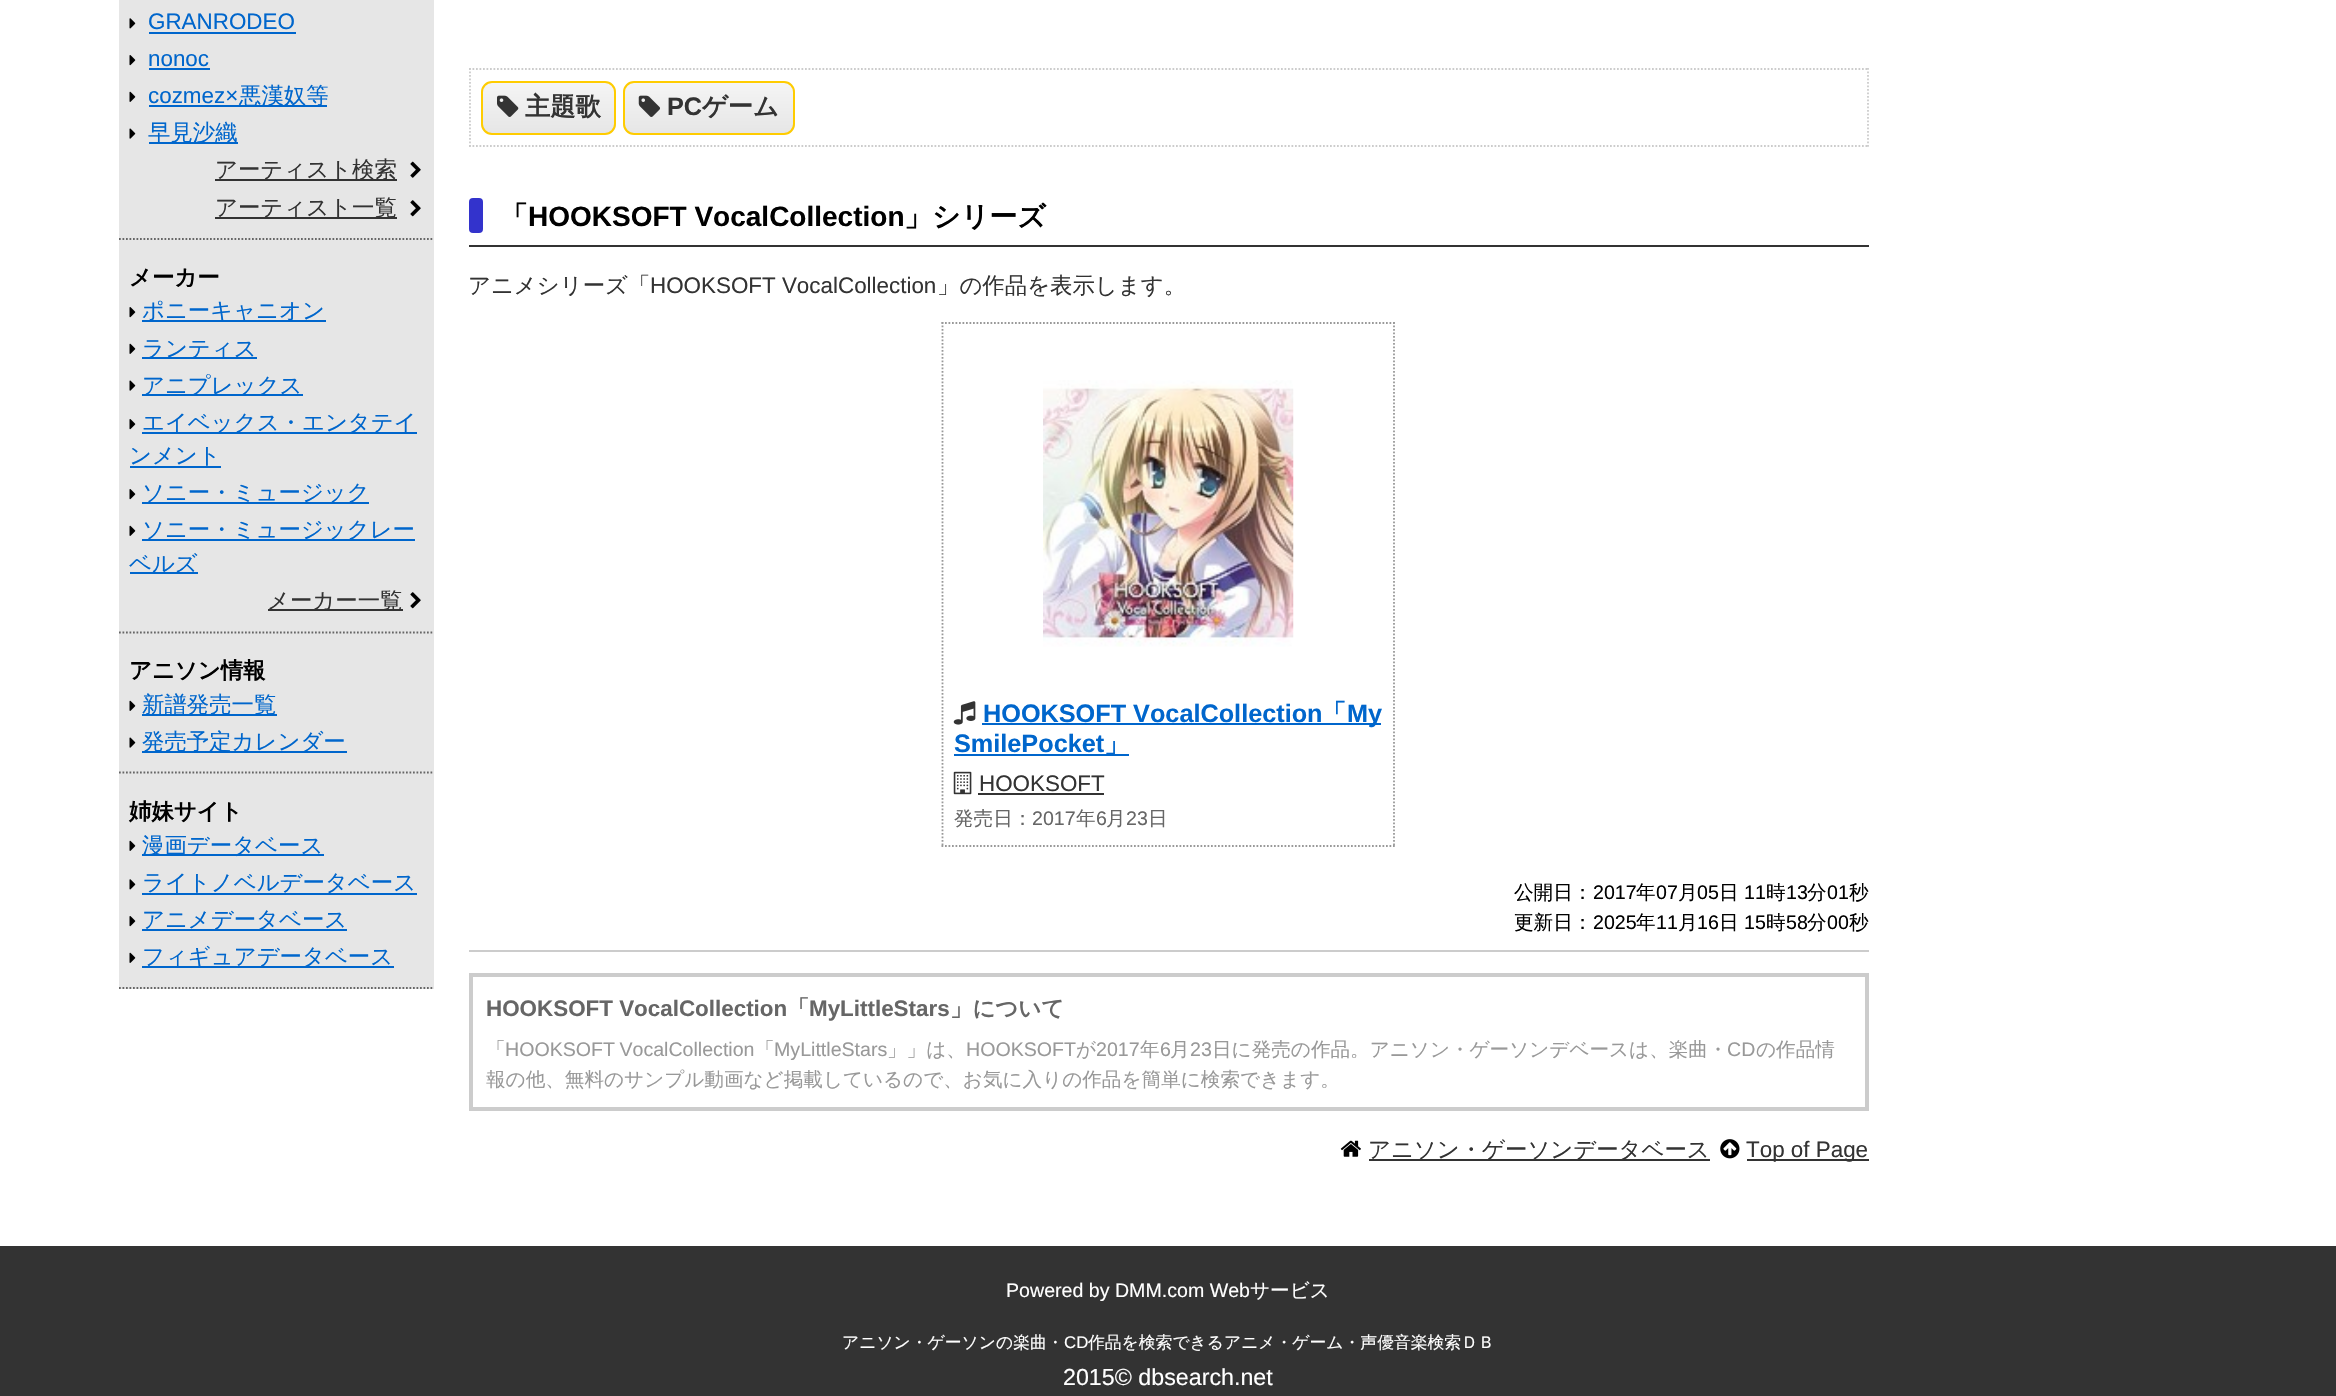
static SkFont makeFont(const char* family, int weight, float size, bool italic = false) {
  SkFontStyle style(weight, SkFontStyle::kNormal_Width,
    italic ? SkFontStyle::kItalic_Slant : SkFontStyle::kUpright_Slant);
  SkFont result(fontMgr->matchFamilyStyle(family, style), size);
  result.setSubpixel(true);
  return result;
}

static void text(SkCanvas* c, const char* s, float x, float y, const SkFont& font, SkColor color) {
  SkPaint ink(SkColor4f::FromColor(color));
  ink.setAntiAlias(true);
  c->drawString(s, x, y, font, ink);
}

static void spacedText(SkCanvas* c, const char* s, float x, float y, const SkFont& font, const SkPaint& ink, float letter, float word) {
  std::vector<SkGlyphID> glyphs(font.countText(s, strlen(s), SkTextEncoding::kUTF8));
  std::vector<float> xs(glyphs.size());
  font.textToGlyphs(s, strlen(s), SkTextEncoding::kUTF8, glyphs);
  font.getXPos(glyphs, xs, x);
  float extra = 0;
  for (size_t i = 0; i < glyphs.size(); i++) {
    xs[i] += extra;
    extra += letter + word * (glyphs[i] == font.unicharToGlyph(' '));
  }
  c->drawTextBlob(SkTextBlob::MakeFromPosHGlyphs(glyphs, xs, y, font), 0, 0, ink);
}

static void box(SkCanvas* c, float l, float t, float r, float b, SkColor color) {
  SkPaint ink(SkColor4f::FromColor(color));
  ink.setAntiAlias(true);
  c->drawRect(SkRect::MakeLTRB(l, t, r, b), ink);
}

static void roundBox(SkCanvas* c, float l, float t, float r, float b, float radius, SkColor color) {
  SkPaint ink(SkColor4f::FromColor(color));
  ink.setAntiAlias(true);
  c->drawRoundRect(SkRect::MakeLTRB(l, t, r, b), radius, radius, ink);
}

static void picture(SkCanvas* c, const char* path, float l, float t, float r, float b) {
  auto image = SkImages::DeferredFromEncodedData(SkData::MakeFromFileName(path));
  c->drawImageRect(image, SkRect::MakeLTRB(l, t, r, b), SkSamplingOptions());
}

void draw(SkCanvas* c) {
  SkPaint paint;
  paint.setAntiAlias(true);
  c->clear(0xffffffff);
  box(c, 119, 0, 434, 989, 0xffe6e6e6);
  paint.setStyle(SkPaint::kStroke_Style);
  paint.setStrokeWidth(1.8f);
  paint.setColor(0xff666666);
  paint.setPathEffect(SkDashPathEffect::Make({{1.75f, 1.75f}}, 0));
  c->drawPath(SkPathBuilder().moveTo(119, 239).lineTo(434, 239).detach(), paint);
  paint.setPathEffect(nullptr);
  picture(c, "img_01.png", 129, 18, 136, 29);
  SkFont face1 = makeFont("Liberation Sans", 400, 22.4f);
  text(c, "GRANRODEO", 148, 29, face1, 0xff0066cc);
  box(c, 149, 32, 296, 34, 0xff0066cc);
  picture(c, "img_02.png", 129, 55, 136, 66);
  text(c, "nonoc", 148, 66, face1, 0xff0066cc);
  box(c, 149, 68, 210, 70, 0xff0066cc);
  picture(c, "img_03.png", 129, 91, 136, 102);
  text(c, "cozmez×", 148, 103, face1, 0xff0066cc);
  box(c, 149, 105, 327, 107, 0xff0066cc);
  SkFont face2 = makeFont("WenQuanYi Zen Hei", 500, 22.4f);
  text(c, "悪漢奴等", 239, 103, face2, 0xff0066cc);
  picture(c, "img_04.png", 129, 128, 136, 139);
  box(c, 149, 142, 238, 144, 0xff0066cc);
  text(c, "早見沙織", 148, 140, face2, 0xff0066cc);
  box(c, 215, 179, 397, 181, 0xff333333);
  text(c, "アーティスト検索", 215, 177, face2, 0xff333333);
  picture(c, "img_05.png", 410, 161, 421, 178);
  box(c, 215, 217, 397, 219, 0xff333333);
  text(c, "アーティスト一覧", 215, 215, face2, 0xff333333);
  picture(c, "img_06.png", 410, 200, 421, 217);
  SkFont face3 = makeFont("WenQuanYi Zen Hei", 700, 22.4f);
  text(c, "メーカー", 129, 285, face3, 0xff000000);
  paint.setPathEffect(SkDashPathEffect::Make({{1.75f, 1.75f}}, 0));
  c->drawPath(SkPathBuilder().moveTo(119, 632.5f).lineTo(434, 632.5f).detach(), paint);
  paint.setPathEffect(nullptr);
  picture(c, "img_02.png", 129, 307, 136, 318);
  box(c, 142, 320, 326, 322, 0xff0066cc);
  text(c, "ポニーキャニオン", 142, 318, face2, 0xff0066cc);
  picture(c, "img_03.png", 129, 343, 136, 354);
  box(c, 142, 357, 257, 359, 0xff0066cc);
  text(c, "ランティス", 142, 356, face2, 0xff0066cc);
  picture(c, "img_04.png", 129, 380, 136, 391);
  box(c, 142, 394, 303, 396, 0xff0066cc);
  text(c, "アニプレックス", 142, 393, face2, 0xff0066cc);
  picture(c, "img_02.png", 129, 419, 136, 430);
  box(c, 142, 432, 417, 434, 0xff0066cc);
  text(c, "エイベックス・エンタテイ", 142, 430, face2, 0xff0066cc);
  text(c, "ンメント", 129, 463, face2, 0xff0066cc);
  box(c, 130, 466, 221, 468, 0xff0066cc);
  picture(c, "img_02.png", 129, 489, 136, 500);
  box(c, 142, 502, 369, 504, 0xff0066cc);
  text(c, "ソニー・ミュージック", 142, 500, face2, 0xff0066cc);
  picture(c, "img_03.png", 129, 525, 136, 536);
  box(c, 142, 539, 415, 541, 0xff0066cc);
  text(c, "ソニー・ミュージックレー", 142, 537, face2, 0xff0066cc);
  box(c, 130, 572, 198, 574, 0xff0066cc);
  text(c, "ベルズ", 129, 571, face2, 0xff0066cc);
  box(c, 268, 609, 403, 611, 0xff333333);
  text(c, "メーカー一覧", 267, 608, face2, 0xff333333);
  picture(c, "img_06.png", 410, 592, 421, 609);
  text(c, "アニソン情報", 129, 678, face3, 0xff000000);
  paint.setPathEffect(SkDashPathEffect::Make({{1.75f, 1.75f}}, 0));
  c->drawPath(SkPathBuilder().moveTo(119, 772.5f).lineTo(434, 772.5f).detach(), paint);
  paint.setPathEffect(nullptr);
  picture(c, "img_03.png", 129, 700, 136, 711);
  box(c, 142, 714, 277, 716, 0xff0066cc);
  text(c, "新譜発売一覧", 142, 712, face2, 0xff0066cc);
  picture(c, "img_04.png", 129, 737, 136, 748);
  box(c, 142, 751, 347, 753, 0xff0066cc);
  text(c, "発売予定カレンダー", 142, 749, face2, 0xff0066cc);
  text(c, "姉妹サイト", 129, 819, face3, 0xff000000);
  paint.setPathEffect(SkDashPathEffect::Make({{1.75f, 1.75f}}, 0));
  c->drawPath(SkPathBuilder().moveTo(119, 988).lineTo(434, 988).detach(), paint);
  paint.setPathEffect(nullptr);
  picture(c, "img_03.png", 129, 840, 136, 851);
  box(c, 142, 854, 324, 856, 0xff0066cc);
  text(c, "漫画データベース", 142, 853, face2, 0xff0066cc);
  picture(c, "img_01.png", 129, 879, 136, 890);
  box(c, 142, 893, 417, 895, 0xff0066cc);
  text(c, "ライトノベルデータベース", 142, 890, face2, 0xff0066cc);
  picture(c, "img_02.png", 129, 916, 136, 927);
  box(c, 142, 929, 347, 931, 0xff0066cc);
  text(c, "アニメデータベース", 142, 927, face2, 0xff0066cc);
  picture(c, "img_03.png", 129, 952, 136, 963);
  box(c, 142, 966, 394, 968, 0xff0066cc);
  text(c, "フィギュアデータベース", 142, 964, face2, 0xff0066cc);
  paint.setColor(0xffcccccc);
  paint.setPathEffect(SkDashPathEffect::Make({{1.75f, 1.75f}}, 0));
  c->drawPath(SkPathBuilder().moveTo(469, 69).lineTo(1869, 69).detach(), paint);
  paint.setPathEffect(nullptr);
  paint.setPathEffect(SkDashPathEffect::Make({{1.75f, 1.75f}}, 0));
  c->drawPath(SkPathBuilder().moveTo(1868, 68).lineTo(1868, 147).detach(), paint);
  paint.setPathEffect(nullptr);
  paint.setPathEffect(SkDashPathEffect::Make({{1.75f, 1.75f}}, 0));
  c->drawPath(SkPathBuilder().moveTo(469, 146).lineTo(1869, 146).detach(), paint);
  paint.setPathEffect(nullptr);
  paint.setPathEffect(SkDashPathEffect::Make({{1.75f, 1.75f}}, 0));
  c->drawPath(SkPathBuilder().moveTo(470, 68).lineTo(470, 147).detach(), paint);
  paint.setPathEffect(nullptr);
  c->save();
  c->clipPath(SkPathBuilder().moveTo(492, 81).lineTo(605, 81).cubicTo(611, 81, 616, 86, 616, 92).lineTo(616, 124).cubicTo(616, 130, 611, 135, 605, 135).lineTo(492, 135).cubicTo(486, 135, 481, 130, 481, 124).lineTo(481, 92).cubicTo(481, 86, 486, 81, 492, 81).close().detach(), true);
  paint.setStyle(SkPaint::kFill_Style);
  {
    const SkColor colors[] = {0xfff5f5f5, 0xffe6e6e6};
    const float stops[] = {0, 1};
    const SkPoint ends[] = {{483, 82}, {483, 133}};
    paint.setShader(SkGradientShader::MakeLinear(ends, colors, stops, 2, SkTileMode::kClamp));
    paint.setAlpha(255);
  }
  c->drawRect(SkRect::MakeLTRB(481, 82, 616, 133), paint);
  c->restore();
  paint.setStyle(SkPaint::kStroke_Style);
  paint.setStrokeWidth(2);
  paint.setShader(nullptr);
  paint.setColor(0xffffcc00);
  c->drawRoundRect(SkRect::MakeLTRB(482, 82, 615, 134), 10, 10, paint);
  picture(c, "img_07.png", 497, 95, 519, 117);
  SkFont face4 = makeFont("WenQuanYi Zen Hei", 700, 25.25f);
  text(c, "主題歌", 525, 115, face4, 0xff333333);
  c->save();
  c->clipPath(SkPathBuilder().moveTo(634, 81).lineTo(784, 81).cubicTo(790, 81, 795, 86, 795, 92).lineTo(795, 124).cubicTo(795, 130, 790, 135, 784, 135).lineTo(634, 135).cubicTo(628, 135, 623, 130, 623, 124).lineTo(623, 92).cubicTo(623, 86, 628, 81, 634, 81).close().detach(), true);
  paint.setStyle(SkPaint::kFill_Style);
  {
    const SkColor colors[] = {0xfff5f5f5, 0xffe6e6e6};
    const float stops[] = {0, 1};
    const SkPoint ends[] = {{625, 82}, {625, 133}};
    paint.setShader(SkGradientShader::MakeLinear(ends, colors, stops, 2, SkTileMode::kClamp));
    paint.setAlpha(255);
  }
  c->drawRect(SkRect::MakeLTRB(623, 82, 795, 133), paint);
  c->restore();
  paint.setStyle(SkPaint::kStroke_Style);
  paint.setShader(nullptr);
  paint.setColor(0xffffcc00);
  c->drawRoundRect(SkRect::MakeLTRB(624, 82, 794, 134), 10, 10, paint);
  picture(c, "img_08.png", 638, 95, 660, 117);
  SkFont face5 = makeFont("Liberation Sans", 700, 25.25f);
  text(c, "PC", 667, 115, face5, 0xff333333);
  text(c, "ゲーム", 702, 115, face4, 0xff333333);
  box(c, 469, 245, 1869, 247, 0xff333333);
  roundBox(c, 469, 198, 483, 233, 4, 0xff3333cc);
  SkFont face6 = makeFont("WenQuanYi Zen Hei", 700, 28);
  text(c, "「", 500, 226, face6, 0xff000000);
  SkFont face7 = makeFont("Liberation Sans", 700, 28);
  text(c, "HOOKSOFT VocalCollection", 528, 226, face7, 0xff000000);
  text(c, "」シリーズ", 904, 226, face6, 0xff000000);
  text(c, "アニメシリーズ「", 468, 293, face2, 0xff333333);
  text(c, "HOOKSOFT VocalCollection", 650, 293, face1, 0xff333333);
  text(c, "」の作品を表示します。", 937, 293, face2, 0xff333333);
  paint.setStrokeWidth(1.8f);
  paint.setColor(0xff999999);
  paint.setPathEffect(SkDashPathEffect::Make({{1.75f, 1.75f}}, 0));
  c->drawPath(SkPathBuilder().moveTo(941.5f, 323).lineTo(1395, 323).detach(), paint);
  paint.setPathEffect(nullptr);
  paint.setPathEffect(SkDashPathEffect::Make({{1.75f, 1.75f}}, 0));
  c->drawPath(SkPathBuilder().moveTo(1394, 322).lineTo(1394, 847).detach(), paint);
  paint.setPathEffect(nullptr);
  paint.setPathEffect(SkDashPathEffect::Make({{1.75f, 1.75f}}, 0));
  c->drawPath(SkPathBuilder().moveTo(941.5f, 846).lineTo(1395, 846).detach(), paint);
  paint.setPathEffect(nullptr);
  paint.setPathEffect(SkDashPathEffect::Make({{1.75f, 1.75f}}, 0));
  c->drawPath(SkPathBuilder().moveTo(942.5f, 322).lineTo(942.5f, 847).detach(), paint);
  paint.setPathEffect(nullptr);
  picture(c, "img_09.png", 1043, 380, 1294, 647);
  picture(c, "img_10.png", 953, 701, 976, 725);
  text(c, "HOOKSOFT VocalCollection", 983, 722, face5, 0xff0066cc);
  text(c, "「", 1321, 722, face4, 0xff0066cc);
  box(c, 982, 723, 1381, 725, 0xff0066cc);
  text(c, "My", 1347, 722, face5, 0xff0066cc);
  text(c, "SmilePocket", 954, 752, face5, 0xff0066cc);
  box(c, 954, 754, 1129, 756, 0xff0066cc);
  text(c, "」", 1104, 752, face4, 0xff0066cc);
  picture(c, "img_11.png", 953, 771, 972, 795);
  text(c, "HOOKSOFT", 979, 791, face1, 0xff333333);
  box(c, 978, 793, 1104, 795, 0xff333333);
  SkFont face8 = makeFont("WenQuanYi Zen Hei", 500, 19.6f);
  text(c, "発売日：", 954, 825, face8, 0xff666666);
  SkFont face9 = makeFont("Liberation Sans", 400, 19.6f);
  text(c, "2017", 1032, 825, face9, 0xff666666);
  text(c, "年", 1076, 825, face8, 0xff666666);
  text(c, "6", 1096, 825, face9, 0xff666666);
  text(c, "月", 1106, 825, face8, 0xff666666);
  text(c, "23", 1126, 825, face9, 0xff666666);
  text(c, "日", 1148, 825, face8, 0xff666666);
  box(c, 469, 950, 1869, 952, 0xffcccccc);
  text(c, "公開日：", 1514, 899, face8, 0xff000000);
  text(c, "2017", 1593, 899, face9, 0xff000000);
  text(c, "年", 1636, 899, face8, 0xff000000);
  text(c, "07", 1656, 899, face9, 0xff000000);
  text(c, "月", 1678, 899, face8, 0xff000000);
  text(c, "05", 1697, 899, face9, 0xff000000);
  text(c, "日", 1719, 899, face8, 0xff000000);
  text(c, "11", 1744, 899, face9, 0xff000000);
  text(c, "時", 1766, 899, face8, 0xff000000);
  text(c, "13", 1786, 899, face9, 0xff000000);
  text(c, "分", 1807, 899, face8, 0xff000000);
  text(c, "01", 1827, 899, face9, 0xff000000);
  text(c, "秒", 1849, 899, face8, 0xff000000);
  text(c, "更新日：", 1514, 929, face8, 0xff000000);
  text(c, "2025", 1593, 929, face9, 0xff000000);
  text(c, "年", 1636, 929, face8, 0xff000000);
  text(c, "11", 1656, 929, face9, 0xff000000);
  text(c, "月", 1678, 929, face8, 0xff000000);
  text(c, "16", 1697, 929, face9, 0xff000000);
  text(c, "日", 1719, 929, face8, 0xff000000);
  text(c, "15", 1744, 929, face9, 0xff000000);
  text(c, "時", 1766, 929, face8, 0xff000000);
  text(c, "58", 1786, 929, face9, 0xff000000);
  text(c, "分", 1807, 929, face8, 0xff000000);
  text(c, "00", 1827, 929, face9, 0xff000000);
  text(c, "秒", 1849, 929, face8, 0xff000000);
  paint.setStrokeWidth(4);
  paint.setColor(0xffcccccc);
  c->drawRect(SkRect::MakeLTRB(471, 975, 1867, 1109), paint);
  SkFont face10 = makeFont("Liberation Sans", 700, 22.4f);
  text(c, "HOOKSOFT VocalCollection", 486, 1016, face10, 0xff666666);
  text(c, "「", 787, 1016, face3, 0xff666666);
  text(c, "MyLittleStars", 809, 1016, face10, 0xff666666);
  text(c, "」について", 950, 1016, face3, 0xff666666);
  text(c, "「", 486, 1056, face8, 0xff999999);
  paint.setStyle(SkPaint::kFill_Style);
  paint.setColor(0xff999999);
  spacedText(c, "HOOKSOFT VocalCollection", 505, 1056, face9, paint, 0, -1);
  text(c, "「", 755, 1056, face8, 0xff999999);
  text(c, "MyLittleStars", 774, 1056, face9, 0xff999999);
  text(c, "」」は、", 887, 1056, face8, 0xff999999);
  text(c, "HOOKSOFT", 966, 1056, face9, 0xff999999);
  text(c, "が", 1076, 1056, face8, 0xff999999);
  text(c, "2017", 1096, 1056, face9, 0xff999999);
  text(c, "年", 1140, 1056, face8, 0xff999999);
  text(c, "6", 1160, 1056, face9, 0xff999999);
  text(c, "月", 1170, 1056, face8, 0xff999999);
  text(c, "23", 1190, 1056, face9, 0xff999999);
  text(c, "日に発売の作品。アニソン・ゲーソンデベースは、楽曲・", 1212, 1056, face8, 0xff999999);
  text(c, "CD", 1727, 1056, face9, 0xff999999);
  text(c, "の作品情", 1756, 1056, face8, 0xff999999);
  text(c, "報の他、無料のサンプル動画など掲載しているので、お気に入りの作品を簡単に検索できます。", 486, 1086, face8, 0xff999999);
  picture(c, "img_12.png", 1340, 1140, 1361, 1157);
  box(c, 1369, 1159, 1710, 1161, 0xff333333);
  text(c, "アニソン・ゲーソンデータベース", 1368, 1157, face2, 0xff333333);
  picture(c, "img_13.png", 1720, 1139, 1740, 1159);
  box(c, 1747, 1159, 1869, 1161, 0xff333333);
  text(c, "Top of Page", 1746, 1157, face1, 0xff333333);
  box(c, 0, 1246, 2336, 1396, 0xff333333);
  text(c, "Powered by DMM.com Web", 1006, 1297, face9, 0xffffffff);
  text(c, "サービス", 1250, 1297, face8, 0xffffffff);
  SkFont face11 = makeFont("WenQuanYi Zen Hei", 500, 16.8f);
  text(c, "アニソン・ゲーソンの楽曲・", 842, 1348, face11, 0xffffffff);
  SkFont face12 = makeFont("Liberation Sans", 400, 16.8f);
  text(c, "CD", 1064, 1348, face12, 0xffffffff);
  text(c, "作品を検索できるアニメ・ゲーム・声優音楽検索ＤＢ", 1088, 1348, face11, 0xffffffff);
  SkFont face13 = makeFont("Liberation Sans", 400, 23.25f);
  text(c, "2015© dbsearch.net", 1063, 1385, face13, 0xffffffff);
}
